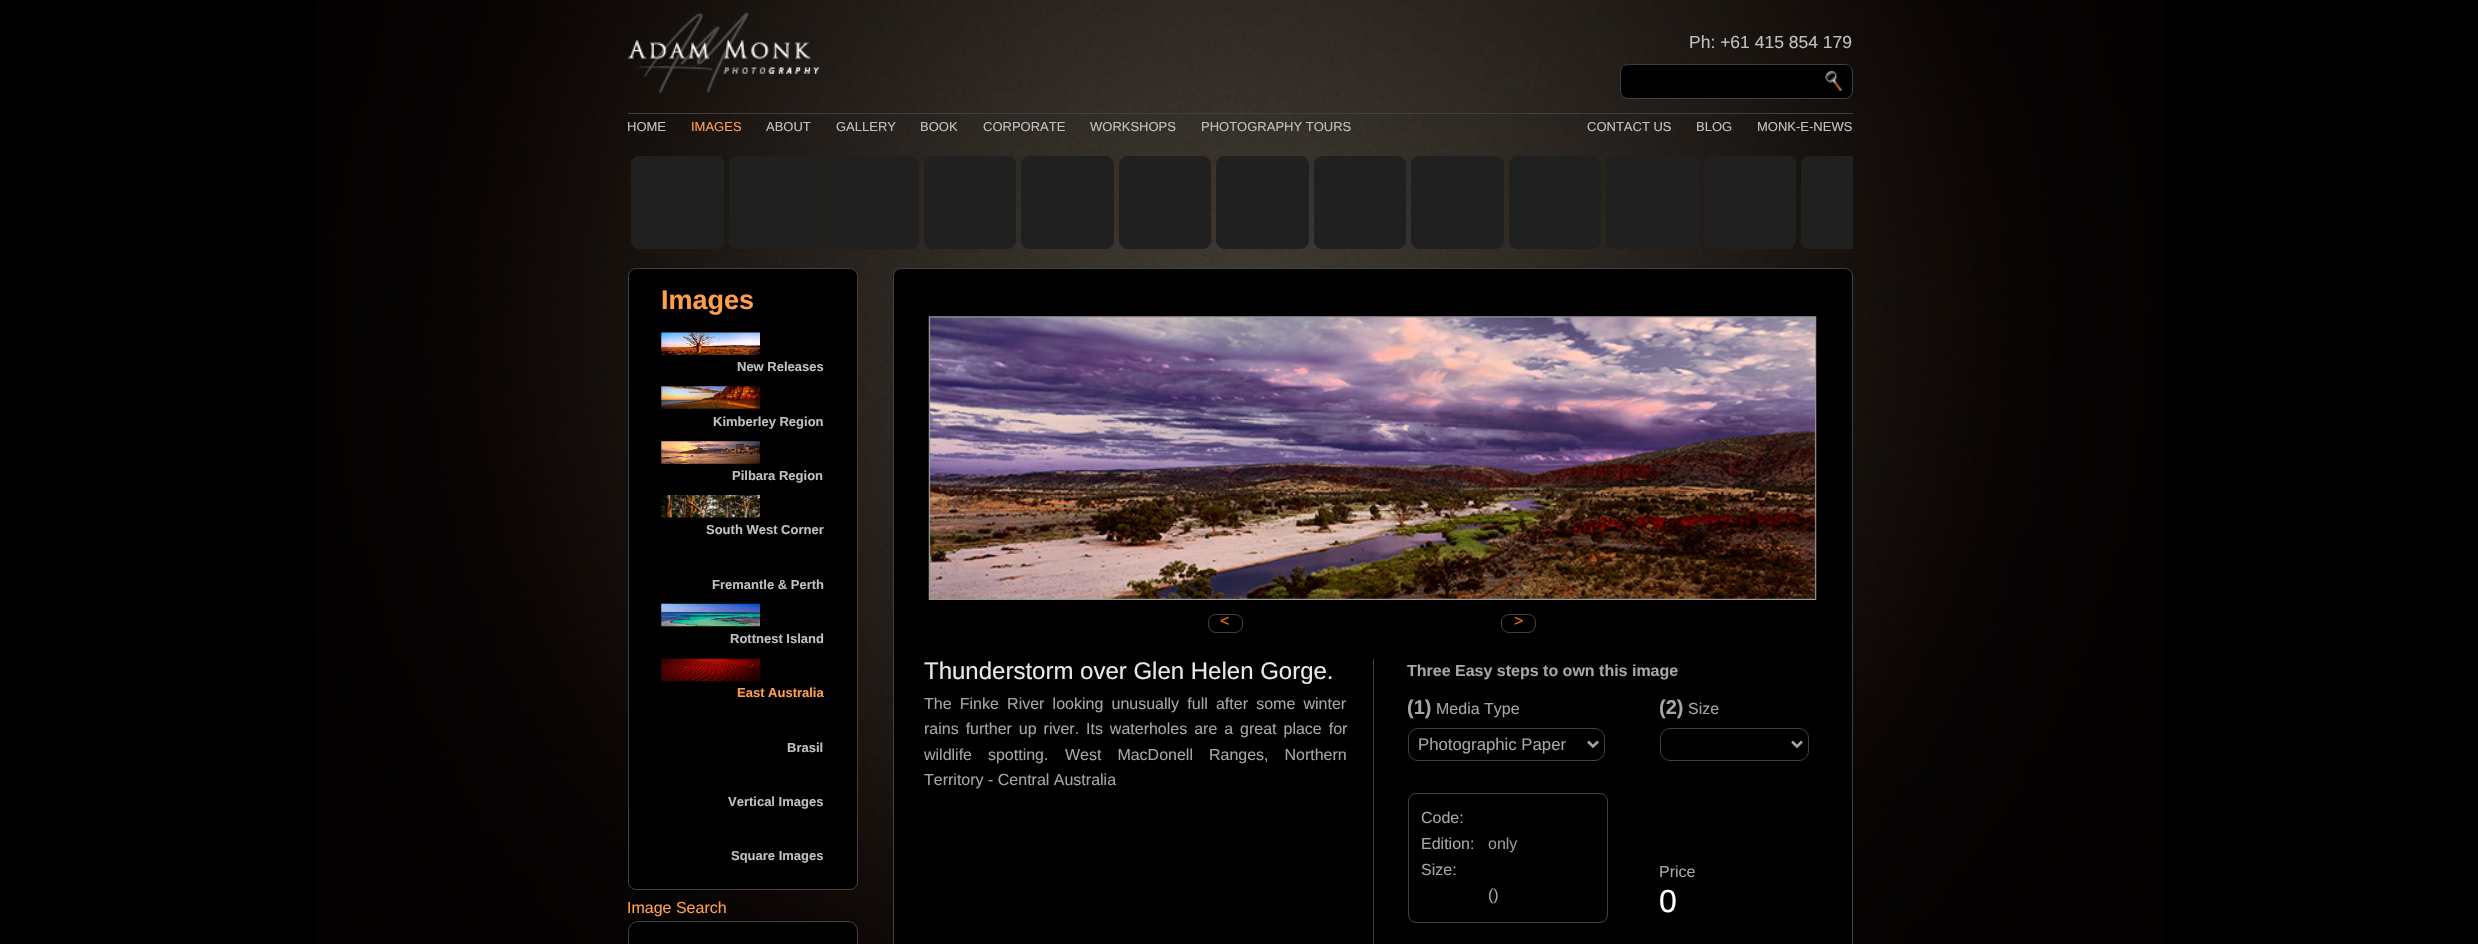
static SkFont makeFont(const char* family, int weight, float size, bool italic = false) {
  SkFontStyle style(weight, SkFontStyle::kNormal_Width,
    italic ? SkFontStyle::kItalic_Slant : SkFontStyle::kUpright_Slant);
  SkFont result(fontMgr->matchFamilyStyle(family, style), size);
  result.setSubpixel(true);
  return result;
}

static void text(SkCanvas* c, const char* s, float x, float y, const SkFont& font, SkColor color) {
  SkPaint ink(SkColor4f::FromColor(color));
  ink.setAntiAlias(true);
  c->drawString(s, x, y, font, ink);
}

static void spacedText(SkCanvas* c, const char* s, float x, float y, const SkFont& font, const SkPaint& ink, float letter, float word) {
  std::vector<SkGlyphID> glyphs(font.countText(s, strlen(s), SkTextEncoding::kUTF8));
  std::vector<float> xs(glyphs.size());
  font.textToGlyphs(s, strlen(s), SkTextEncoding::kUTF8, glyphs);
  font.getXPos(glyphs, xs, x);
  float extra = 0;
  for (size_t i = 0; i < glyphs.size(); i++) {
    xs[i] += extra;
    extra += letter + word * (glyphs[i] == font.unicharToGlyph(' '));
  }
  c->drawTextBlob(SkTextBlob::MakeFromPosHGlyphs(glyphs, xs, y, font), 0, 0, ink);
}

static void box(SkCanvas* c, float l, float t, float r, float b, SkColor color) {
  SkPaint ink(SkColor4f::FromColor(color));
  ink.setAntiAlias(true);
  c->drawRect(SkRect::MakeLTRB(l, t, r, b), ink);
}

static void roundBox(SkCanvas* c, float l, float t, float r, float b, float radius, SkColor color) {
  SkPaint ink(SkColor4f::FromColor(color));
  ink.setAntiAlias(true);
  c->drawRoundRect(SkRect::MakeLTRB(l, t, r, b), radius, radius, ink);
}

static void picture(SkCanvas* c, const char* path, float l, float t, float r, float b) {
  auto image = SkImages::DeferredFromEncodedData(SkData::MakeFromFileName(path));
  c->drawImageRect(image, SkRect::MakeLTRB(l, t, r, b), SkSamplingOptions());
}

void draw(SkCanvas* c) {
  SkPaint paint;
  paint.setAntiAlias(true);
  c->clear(0xff000000);
  picture(c, "img_01.png", 315, 0, 2165, 944);
  picture(c, "img_02.png", 627, 12, 819, 94);
  SkFont face1 = makeFont("Liberation Sans", 400, 17.5f);
  text(c, "Ph: +61 415 854 179", 1689, 48, face1, 0xffc0c0c0);
  paint.setColor(0xff000000);
  c->drawRoundRect(SkRect::MakeLTRB(1620.5f, 64.5f, 1852.5f, 98.5f), 7.5f, 7.5f, paint);
  paint.setStyle(SkPaint::kStroke_Style);
  paint.setStrokeWidth(1);
  paint.setColor(0xff404040);
  c->drawRoundRect(SkRect::MakeLTRB(1620.5f, 64.5f, 1852.5f, 98.5f), 7.5f, 7.5f, paint);
  box(c, 1623, 66, 1625, 67, 0xff000000);
  box(c, 1848, 66, 1850, 67, 0xff000000);
  picture(c, "img_03.png", 1825, 71, 1843, 92);
  box(c, 628, 113, 1853, 114, 0xff404040);
  SkFont face2 = makeFont("Liberation Sans", 400, 13);
  text(c, "HOME", 627, 131, face2, 0xffc0c0c0);
  text(c, "IMAGES", 691, 131, face2, 0xffff9e4d);
  text(c, "ABOUT", 766, 131, face2, 0xffc0c0c0);
  text(c, "GALLERY", 836, 131, face2, 0xffc0c0c0);
  text(c, "BOOK", 920, 131, face2, 0xffc0c0c0);
  text(c, "CORPORATE", 983, 131, face2, 0xffc0c0c0);
  text(c, "WORKSHOPS", 1090, 131, face2, 0xffc0c0c0);
  text(c, "PHOTOGRAPHY TOURS", 1201, 131, face2, 0xffc0c0c0);
  text(c, "CONTACT US", 1587, 131, face2, 0xffc0c0c0);
  text(c, "BLOG", 1696, 131, face2, 0xffc0c0c0);
  text(c, "MONK-E-NEWS", 1757, 131, face2, 0xffc0c0c0);
  paint.setStyle(SkPaint::kFill_Style);
  paint.setColor(0xff000000);
  c->drawRoundRect(SkRect::MakeLTRB(628.5f, 268.5f, 857.5f, 889.5f), 7.5f, 7.5f, paint);
  paint.setStyle(SkPaint::kStroke_Style);
  paint.setColor(0xff404040);
  c->drawRoundRect(SkRect::MakeLTRB(628.5f, 268.5f, 857.5f, 889.5f), 7.5f, 7.5f, paint);
  SkFont face3 = makeFont("Liberation Sans", 700, 27);
  text(c, "Images", 661, 309, face3, 0xffff9e4d);
  picture(c, "img_04.png", 661, 332, 760, 355);
  SkFont face4 = makeFont("Liberation Sans", 700, 13);
  text(c, "New Releases", 737, 371, face4, 0xffc0c0c0);
  picture(c, "img_05.png", 661, 386, 760, 409);
  text(c, "Kimberley Region", 713, 426, face4, 0xffc0c0c0);
  picture(c, "img_06.png", 661, 441, 760, 464);
  text(c, "Pilbara Region", 732, 480, face4, 0xffc0c0c0);
  picture(c, "img_07.png", 661, 495, 760, 518);
  text(c, "South West Corner", 706, 534, face4, 0xffc0c0c0);
  text(c, "Fremantle & Perth", 712, 589, face4, 0xffc0c0c0);
  picture(c, "img_08.png", 661, 603, 760, 627);
  text(c, "Rottnest Island", 730, 643, face4, 0xffc0c0c0);
  picture(c, "img_09.png", 661, 658, 760, 682);
  text(c, "East Australia", 737, 697, face4, 0xffff9e4d);
  text(c, "Brasil", 787, 752, face4, 0xffc0c0c0);
  text(c, "Vertical Images", 728, 806, face4, 0xffc0c0c0);
  text(c, "Square Images", 731, 860, face4, 0xffc0c0c0);
  SkFont face5 = makeFont("Liberation Sans", 400, 16);
  text(c, "Image Search", 627, 913, face5, 0xffff9e4d);
  paint.setStyle(SkPaint::kFill_Style);
  paint.setColor(0xff000000);
  c->drawRoundRect(SkRect::MakeLTRB(628.5f, 921.5f, 857.5f, 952.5f), 9.5f, 9.5f, paint);
  paint.setStyle(SkPaint::kStroke_Style);
  paint.setColor(0xff404040);
  c->drawRoundRect(SkRect::MakeLTRB(628.5f, 921.5f, 857.5f, 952.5f), 9.5f, 9.5f, paint);
  paint.setStyle(SkPaint::kFill_Style);
  paint.setColor(0xff202020);
  c->drawRoundRect(SkRect::MakeLTRB(631.5f, 156.5f, 723.5f, 248.5f), 7.5f, 7.5f, paint);
  paint.setStyle(SkPaint::kStroke_Style);
  c->drawRoundRect(SkRect::MakeLTRB(631.5f, 156.5f, 723.5f, 248.5f), 7.5f, 7.5f, paint);
  paint.setStyle(SkPaint::kFill_Style);
  c->drawRoundRect(SkRect::MakeLTRB(729.5f, 156.5f, 820.5f, 248.5f), 7.5f, 7.5f, paint);
  paint.setStyle(SkPaint::kStroke_Style);
  c->drawRoundRect(SkRect::MakeLTRB(729.5f, 156.5f, 820.5f, 248.5f), 7.5f, 7.5f, paint);
  paint.setStyle(SkPaint::kFill_Style);
  c->drawRoundRect(SkRect::MakeLTRB(826.5f, 156.5f, 918.5f, 248.5f), 7.5f, 7.5f, paint);
  paint.setStyle(SkPaint::kStroke_Style);
  c->drawRoundRect(SkRect::MakeLTRB(826.5f, 156.5f, 918.5f, 248.5f), 7.5f, 7.5f, paint);
  paint.setStyle(SkPaint::kFill_Style);
  c->drawRoundRect(SkRect::MakeLTRB(924.5f, 156.5f, 1015.5f, 248.5f), 7.5f, 7.5f, paint);
  paint.setStyle(SkPaint::kStroke_Style);
  c->drawRoundRect(SkRect::MakeLTRB(924.5f, 156.5f, 1015.5f, 248.5f), 7.5f, 7.5f, paint);
  paint.setStyle(SkPaint::kFill_Style);
  c->drawRoundRect(SkRect::MakeLTRB(1021.5f, 156.5f, 1113.5f, 248.5f), 7.5f, 7.5f, paint);
  paint.setStyle(SkPaint::kStroke_Style);
  c->drawRoundRect(SkRect::MakeLTRB(1021.5f, 156.5f, 1113.5f, 248.5f), 7.5f, 7.5f, paint);
  paint.setStyle(SkPaint::kFill_Style);
  c->drawRoundRect(SkRect::MakeLTRB(1119.5f, 156.5f, 1210.5f, 248.5f), 7.5f, 7.5f, paint);
  paint.setStyle(SkPaint::kStroke_Style);
  c->drawRoundRect(SkRect::MakeLTRB(1119.5f, 156.5f, 1210.5f, 248.5f), 7.5f, 7.5f, paint);
  paint.setStyle(SkPaint::kFill_Style);
  c->drawRoundRect(SkRect::MakeLTRB(1216.5f, 156.5f, 1308.5f, 248.5f), 7.5f, 7.5f, paint);
  paint.setStyle(SkPaint::kStroke_Style);
  c->drawRoundRect(SkRect::MakeLTRB(1216.5f, 156.5f, 1308.5f, 248.5f), 7.5f, 7.5f, paint);
  paint.setStyle(SkPaint::kFill_Style);
  c->drawRoundRect(SkRect::MakeLTRB(1314.5f, 156.5f, 1405.5f, 248.5f), 7.5f, 7.5f, paint);
  paint.setStyle(SkPaint::kStroke_Style);
  c->drawRoundRect(SkRect::MakeLTRB(1314.5f, 156.5f, 1405.5f, 248.5f), 7.5f, 7.5f, paint);
  paint.setStyle(SkPaint::kFill_Style);
  c->drawRoundRect(SkRect::MakeLTRB(1411.5f, 156.5f, 1503.5f, 248.5f), 7.5f, 7.5f, paint);
  paint.setStyle(SkPaint::kStroke_Style);
  c->drawRoundRect(SkRect::MakeLTRB(1411.5f, 156.5f, 1503.5f, 248.5f), 7.5f, 7.5f, paint);
  paint.setStyle(SkPaint::kFill_Style);
  c->drawRoundRect(SkRect::MakeLTRB(1509.5f, 156.5f, 1600.5f, 248.5f), 7.5f, 7.5f, paint);
  paint.setStyle(SkPaint::kStroke_Style);
  c->drawRoundRect(SkRect::MakeLTRB(1509.5f, 156.5f, 1600.5f, 248.5f), 7.5f, 7.5f, paint);
  roundBox(c, 1606, 156, 1699, 249, 8, 0xff202020);
  paint.setStyle(SkPaint::kFill_Style);
  c->drawRoundRect(SkRect::MakeLTRB(1704.5f, 156.5f, 1795.5f, 248.5f), 7.5f, 7.5f, paint);
  paint.setStyle(SkPaint::kStroke_Style);
  c->drawRoundRect(SkRect::MakeLTRB(1704.5f, 156.5f, 1795.5f, 248.5f), 7.5f, 7.5f, paint);
  paint.setStyle(SkPaint::kFill_Style);
  c->drawPath(SkPathBuilder().moveTo(1809, 156).lineTo(1853, 156).lineTo(1853, 249).lineTo(1809, 249).cubicTo(1804.5f, 249, 1801, 245.5f, 1801, 241).lineTo(1801, 164).cubicTo(1801, 159.5f, 1804.5f, 156, 1809, 156).close().detach(), paint);
  c->save();
  c->clipRect(SkRect::MakeLTRB(628, 153, 1853, 249));
  paint.setStyle(SkPaint::kStroke_Style);
  c->drawRoundRect(SkRect::MakeLTRB(1801.5f, 156.5f, 1893.5f, 248.5f), 7.5f, 7.5f, paint);
  c->restore();
  paint.setStyle(SkPaint::kFill_Style);
  paint.setColor(0xff000000);
  c->drawRoundRect(SkRect::MakeLTRB(893.5f, 268.5f, 1852.5f, 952.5f), 7.5f, 7.5f, paint);
  paint.setStyle(SkPaint::kStroke_Style);
  paint.setColor(0xff404040);
  c->drawRoundRect(SkRect::MakeLTRB(893.5f, 268.5f, 1852.5f, 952.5f), 7.5f, 7.5f, paint);
  picture(c, "img_10.png", 928, 316, 1817, 600);
  c->drawRoundRect(SkRect::MakeLTRB(1208.5f, 614.5f, 1242.5f, 632.5f), 7.5f, 7.5f, paint);
  text(c, "<", 1220, 626, face5, 0xffff7400);
  c->drawRoundRect(SkRect::MakeLTRB(1501.5f, 614.5f, 1535.5f, 632.5f), 7.5f, 7.5f, paint);
  text(c, ">", 1514, 626, face5, 0xffff7400);
  box(c, 1373, 659, 1374, 944, 0xff404040);
  SkFont face6 = makeFont("Liberation Sans", 400, 24);
  text(c, "Thunderstorm over Glen Helen Gorge.", 924, 679, face6, 0xffe8e8e8);
  paint.setStyle(SkPaint::kFill_Style);
  paint.setColor(0xffa6a6a6);
  spacedText(c, "The Finke River looking unusually full after some winter", 924, 709, face5, paint, 0, 3.75f);
  spacedText(c, "rains further up river.", 924, 734, face5, paint, 0, 2.5f);
  spacedText(c, "Its waterholes are a great place for", 1086, 734, face5, paint, 0, 2.5f);
  spacedText(c, "wildlife spotting.", 924, 760, face5, paint, 0, 11.5f);
  spacedText(c, "West MacDonell Ranges, Northern", 1065, 760, face5, paint, 0, 11.5f);
  text(c, "Territory - Central Australia", 924, 785, face5, 0xffa6a6a6);
  SkFont face7 = makeFont("Liberation Sans", 700, 16);
  text(c, "Three Easy steps to own this image", 1407, 676, face7, 0xffa6a6a6);
  SkFont face8 = makeFont("Liberation Sans", 700, 20);
  text(c, "(1)", 1407, 714, face8, 0xffa6a6a6);
  text(c, "Media Type", 1436, 714, face5, 0xffa6a6a6);
  paint.setStyle(SkPaint::kStroke_Style);
  paint.setColor(0xff404040);
  c->drawRoundRect(SkRect::MakeLTRB(1408.5f, 728.5f, 1604.5f, 760.5f), 9.5f, 9.5f, paint);
  paint.setStrokeWidth(2.5f);
  paint.setColor(0xffa6a6a6);
  c->drawPath(SkPathBuilder().moveTo(1588, 741.5f).lineTo(1593, 746.5f).lineTo(1598, 741.5f).detach(), paint);
  SkFont face9 = makeFont("Liberation Sans", 400, 16.75f);
  text(c, "Photographic Paper", 1418, 750, face9, 0xffa6a6a6);
  text(c, "(2)", 1659, 714, face8, 0xffa6a6a6);
  text(c, "Size", 1688, 714, face5, 0xffa6a6a6);
  paint.setStrokeWidth(1);
  paint.setColor(0xff404040);
  c->drawRoundRect(SkRect::MakeLTRB(1660.5f, 728.5f, 1808.5f, 760.5f), 9.5f, 9.5f, paint);
  paint.setStrokeWidth(2.5f);
  paint.setColor(0xffa6a6a6);
  c->drawPath(SkPathBuilder().moveTo(1792, 741.5f).lineTo(1797, 746.5f).lineTo(1802, 741.5f).detach(), paint);
  paint.setStrokeWidth(1);
  paint.setColor(0xff404040);
  c->drawRoundRect(SkRect::MakeLTRB(1408.5f, 793.5f, 1607.5f, 922.5f), 7.5f, 7.5f, paint);
  text(c, "Code:", 1421, 823, face5, 0xffa6a6a6);
  text(c, "Edition:", 1421, 849, face5, 0xffa6a6a6);
  text(c, "only", 1488, 849, face5, 0xff999999);
  text(c, "Size:", 1421, 875, face5, 0xffa6a6a6);
  text(c, "()", 1488, 900, face5, 0xffa6a6a6);
  text(c, "Price", 1659, 877, face5, 0xffa6a6a6);
  SkFont face10 = makeFont("Liberation Sans", 400, 32);
  text(c, "0", 1659, 912, face10, 0xffffffff);
}
